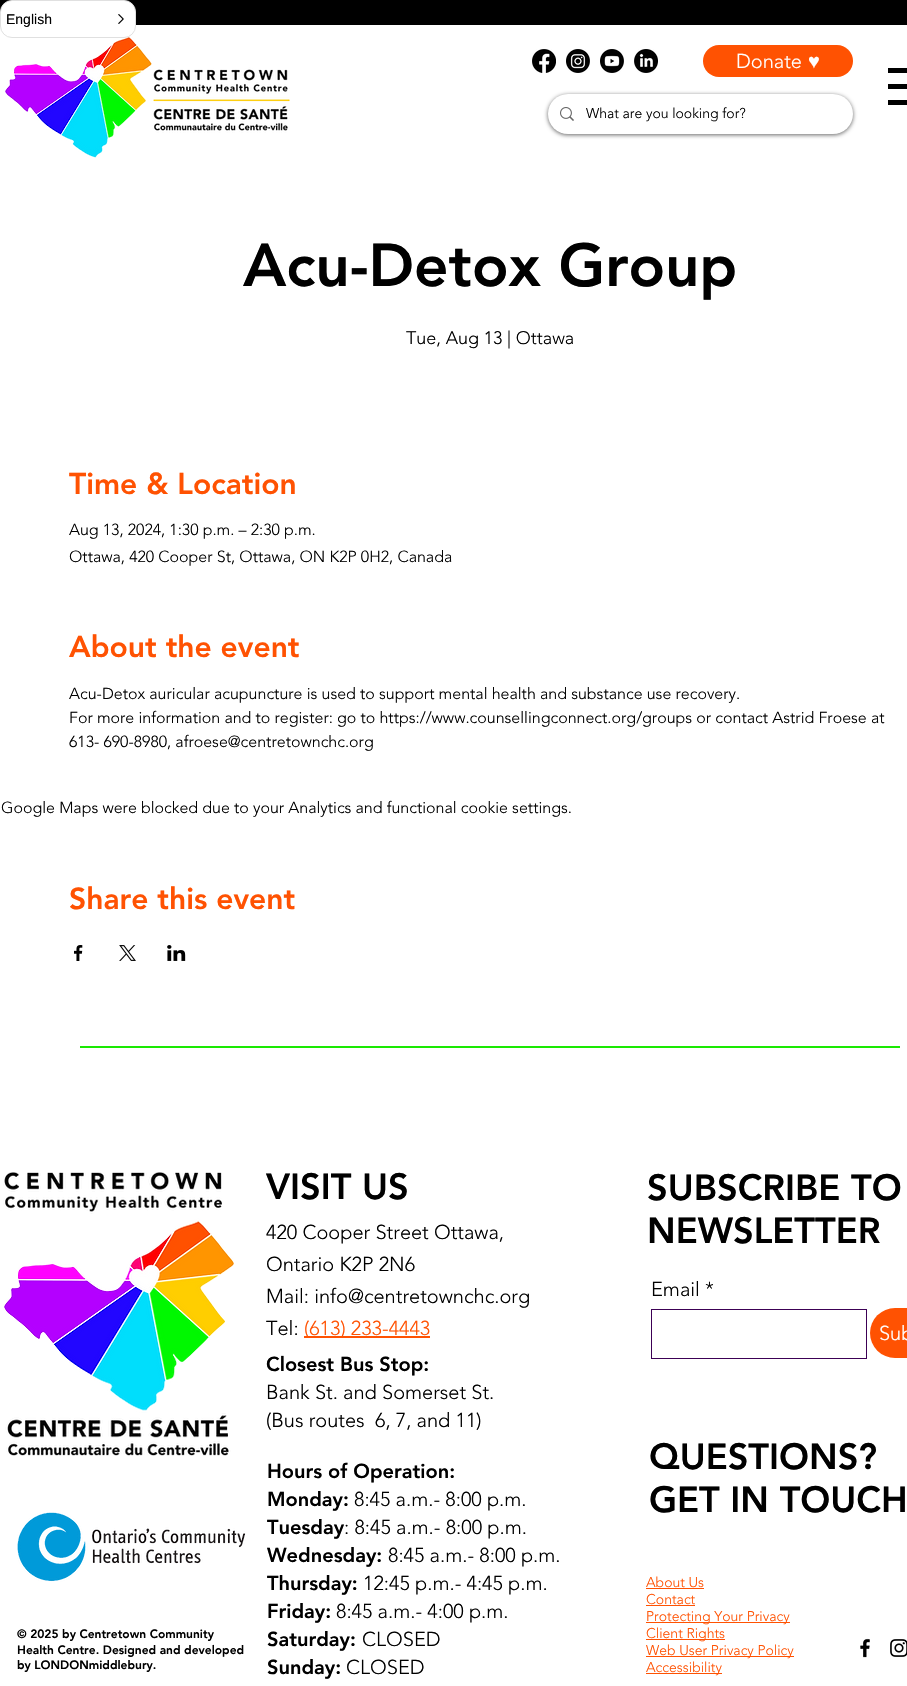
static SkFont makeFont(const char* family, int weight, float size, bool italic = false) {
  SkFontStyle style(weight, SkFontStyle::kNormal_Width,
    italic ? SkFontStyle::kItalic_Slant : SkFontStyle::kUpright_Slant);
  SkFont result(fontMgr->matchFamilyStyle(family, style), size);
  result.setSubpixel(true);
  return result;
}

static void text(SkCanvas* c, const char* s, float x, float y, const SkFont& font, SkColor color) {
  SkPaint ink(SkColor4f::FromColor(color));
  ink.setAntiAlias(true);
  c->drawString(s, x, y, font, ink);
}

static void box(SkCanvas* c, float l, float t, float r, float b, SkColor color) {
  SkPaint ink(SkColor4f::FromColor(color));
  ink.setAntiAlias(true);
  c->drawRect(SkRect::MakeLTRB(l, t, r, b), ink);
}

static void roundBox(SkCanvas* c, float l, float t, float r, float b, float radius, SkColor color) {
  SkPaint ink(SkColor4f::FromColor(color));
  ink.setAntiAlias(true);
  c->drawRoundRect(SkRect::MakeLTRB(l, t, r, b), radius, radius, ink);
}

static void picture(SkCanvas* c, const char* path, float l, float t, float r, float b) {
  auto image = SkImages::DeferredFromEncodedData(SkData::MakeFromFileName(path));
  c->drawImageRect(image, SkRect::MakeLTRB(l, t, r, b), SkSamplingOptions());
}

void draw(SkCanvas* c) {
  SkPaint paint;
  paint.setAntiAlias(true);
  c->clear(0xffffffff);
  box(c, 0, 0, 907, 25, 0xff000000);
  picture(c, "img_02.png", 5, 37, 290, 158);
  paint.setColor(0xffffffff);
  c->drawRoundRect(SkRect::MakeLTRB(0.5f, 0.5f, 135.5f, 37.5f), 11.5f, 11.5f, paint);
  paint.setStyle(SkPaint::kStroke_Style);
  paint.setStrokeWidth(1);
  paint.setColor(0xffe0e0e0);
  c->drawRoundRect(SkRect::MakeLTRB(0.5f, 0.5f, 135.5f, 37.5f), 11.5f, 11.5f, paint);
  SkFont face1 = makeFont("Liberation Sans", 400, 14);
  text(c, "English", 6, 24, face1, 0xff000000);
  picture(c, "img_01.png", 118, 14, 124, 24);
  picture(c, "img_03.png", 532, 49, 556, 73);
  picture(c, "img_04.png", 566, 49, 590, 73);
  picture(c, "img_05.png", 600, 49, 624, 73);
  picture(c, "img_06.png", 634, 49, 658, 73);
  roundBox(c, 703, 45, 853, 77, 16, 0xffff5202);
  SkFont face2 = makeFont("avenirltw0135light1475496", 300, 20);
  text(c, "Donate", 736, 68, face2, 0xffffffff);
  SkFont face3 = makeFont("Liberation Sans", 400, 20);
  text(c, "♥", 808, 68, face3, 0xffffffff);
  box(c, 888, 100, 907, 105, 0xff000000);
  box(c, 888, 68, 907, 73, 0xff000000);
  box(c, 888, 84, 907, 89, 0xff000000);
  paint.setStyle(SkPaint::kFill_Style);
  paint.setColor(0x99000000);
  paint.setMaskFilter(SkMaskFilter::MakeBlur(kNormal_SkBlurStyle, 2));
  c->drawRoundRect(SkRect::MakeLTRB(548, 95, 853, 135), 20, 20, paint);
  paint.setMaskFilter(nullptr);
  roundBox(c, 548, 94, 853, 134, 20, 0xffffffff);
  picture(c, "img_07.png", 560, 107, 574, 121);
  SkFont face4 = makeFont("avenirltw0135light1475496", 300, 14);
  text(c, "What are you looking for?", 586, 118, face4, 0xff000000);
  SkFont face5 = makeFont("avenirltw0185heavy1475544", 900, 60);
  text(c, "Acu-Detox Group", 243, 286, face5, 0xff000000);
  SkFont face6 = makeFont("avenirltw0135light1475496", 300, 18);
  text(c, "Tue, Aug 13 | Ottawa", 406, 344, face6, 0xff000000);
  SkFont face7 = makeFont("avenirltw0185heavy1475544", 900, 30);
  text(c, "Time & Location", 69, 494, face7, 0xffff5202);
  SkFont face8 = makeFont("avenirltw0135light1475496", 300, 16);
  text(c, "Aug 13, 2024, 1:30 p.m. – 2:30 p.m.", 69, 535, face8, 0xff000000);
  text(c, "Ottawa, 420 Cooper St, Ottawa, ON K2P 0H2, Canada", 69, 562, face8, 0xff000000);
  text(c, "About the event", 69, 657, face7, 0xffff5202);
  text(c, "Acu-Detox auricular acupuncture is used to support mental health and substance use recovery.", 69, 699, face8, 0xff000000);
  text(c, "For more information and to register: go to https://www.counsellingconnect.org/groups or contact Astrid Froese at", 69, 723, face8, 0xff000000);
  text(c, "613- 690-8980, afroese@centretownchc.org", 69, 747, face8, 0xff000000);
  text(c, "Google Maps were blocked due to your Analytics and functional cookie settings.", 1, 813, face8, 0xff000000);
  text(c, "Share this event", 69, 909, face7, 0xffff5202);
  picture(c, "img_08.png", 74, 945, 83, 961);
  picture(c, "img_09.png", 119, 945, 136, 961);
  picture(c, "img_10.png", 167, 945, 186, 961);
  box(c, 80, 1046, 900, 1048, 0xff1ae902);
  picture(c, "img_11.png", 3, 1172, 234, 1456);
  picture(c, "img_12.png", 17, 1512, 246, 1582);
  SkFont face9 = makeFont("avenirltw0185heavy1475544", 900, 12);
  text(c, "© 2025 by Centretown Community", 17, 1638, face9, 0xff000000);
  text(c, "Health Centre. Designed and developed", 17, 1654, face9, 0xff000000);
  text(c, "by LONDONmiddlebury.", 17, 1669, face9, 0xff000000);
  SkFont face10 = makeFont("avenirltw0185heavy1475544", 900, 36);
  text(c, "VISIT US", 266, 1199, face10, 0xff000000);
  text(c, "420 Cooper Street Ottawa,", 266, 1239, face2, 0xff000000);
  text(c, "Ontario K2P 2N6", 266, 1271, face2, 0xff000000);
  text(c, "Mail: info@centretownchc.org", 266, 1303, face2, 0xff000000);
  text(c, "Tel:", 266, 1335, face2, 0xff000000);
  box(c, 304, 1336, 430, 1338, 0xffff5202);
  text(c, "(613) 233-4443", 304, 1335, face2, 0xffff5202);
  SkFont face11 = makeFont("avenirltw0185heavy1475544", 900, 20);
  text(c, "Closest Bus Stop:", 266, 1371, face11, 0xff000000);
  text(c, "Bank St. and Somerset St.", 266, 1399, face2, 0xff000000);
  text(c, "(Bus routes  6, 7, and 11)", 266, 1427, face2, 0xff000000);
  text(c, "Hours of Operation:", 267, 1478, face11, 0xff000000);
  text(c, "Monday:", 267, 1506, face11, 0xff000000);
  text(c, "8:45 a.m.- 8:00 p.m.", 354, 1506, face2, 0xff000000);
  text(c, "Tuesday", 267, 1534, face11, 0xff000000);
  text(c, ": 8:45 a.m.- 8:00 p.m.", 344, 1534, face2, 0xff000000);
  text(c, "Wednesday:", 267, 1562, face11, 0xff000000);
  text(c, "8:45 a.m.- 8:00 p.m.", 388, 1562, face2, 0xff000000);
  text(c, "Thursday:", 267, 1590, face11, 0xff000000);
  text(c, "12:45 p.m.- 4:45 p.m.", 363, 1590, face2, 0xff000000);
  text(c, "Friday:", 267, 1618, face11, 0xff000000);
  text(c, "8:45 a.m.- 4:00 p.m.", 336, 1618, face2, 0xff000000);
  text(c, "Saturday:", 267, 1646, face11, 0xff000000);
  text(c, "CLOSED", 362, 1646, face2, 0xff000000);
  text(c, "Sunday:", 267, 1674, face11, 0xff000000);
  text(c, "CLOSED", 346, 1674, face2, 0xff000000);
  text(c, "SUBSCRIBE TO", 647, 1200, face10, 0xff000000);
  text(c, "NEWSLETTER", 647, 1243, face10, 0xff000000);
  text(c, "Email *", 651, 1296, face2, 0xff000000);
  paint.setStyle(SkPaint::kStroke_Style);
  paint.setColor(0xff3c0055);
  c->drawRect(SkRect::MakeLTRB(651.5f, 1309.5f, 866.5f, 1358.5f), paint);
  roundBox(c, 870, 1308, 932, 1358, 25, 0xffff5202);
  text(c, "Sub", 879, 1340, face2, 0xffffffff);
  text(c, "QUESTIONS?", 649, 1469, face10, 0xff000000);
  text(c, "GET IN TOUCH", 649, 1512, face10, 0xff000000);
  text(c, "About Us", 646, 1587, face4, 0xffff5202);
  box(c, 646, 1588, 704, 1589, 0xffff5202);
  text(c, "Contact", 646, 1604, face4, 0xffff5202);
  box(c, 646, 1605, 695, 1606, 0xffff5202);
  box(c, 646, 1622, 790, 1623, 0xffff5202);
  text(c, "Protecting Your Privacy", 646, 1621, face4, 0xffff5202);
  box(c, 646, 1639, 725, 1640, 0xffff5202);
  text(c, "Client Rights", 646, 1638, face4, 0xffff5202);
  box(c, 646, 1656, 794, 1657, 0xffff5202);
  text(c, "Web User Privacy Policy", 646, 1655, face4, 0xffff5202);
  box(c, 646, 1673, 722, 1674, 0xffff5202);
  text(c, "Accessibility", 646, 1672, face4, 0xffff5202);
  picture(c, "img_13.png", 860, 1638, 870, 1658);
  picture(c, "img_14.png", 890, 1639, 907, 1657);
}
